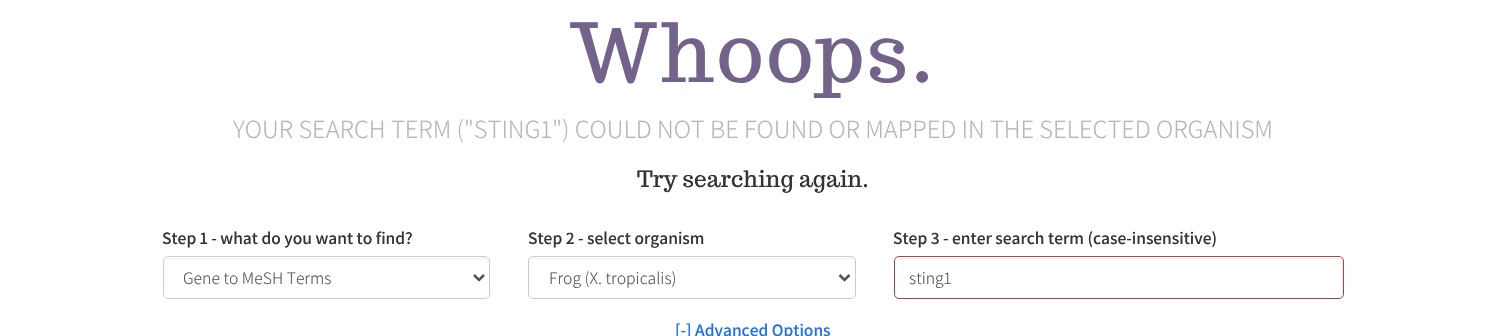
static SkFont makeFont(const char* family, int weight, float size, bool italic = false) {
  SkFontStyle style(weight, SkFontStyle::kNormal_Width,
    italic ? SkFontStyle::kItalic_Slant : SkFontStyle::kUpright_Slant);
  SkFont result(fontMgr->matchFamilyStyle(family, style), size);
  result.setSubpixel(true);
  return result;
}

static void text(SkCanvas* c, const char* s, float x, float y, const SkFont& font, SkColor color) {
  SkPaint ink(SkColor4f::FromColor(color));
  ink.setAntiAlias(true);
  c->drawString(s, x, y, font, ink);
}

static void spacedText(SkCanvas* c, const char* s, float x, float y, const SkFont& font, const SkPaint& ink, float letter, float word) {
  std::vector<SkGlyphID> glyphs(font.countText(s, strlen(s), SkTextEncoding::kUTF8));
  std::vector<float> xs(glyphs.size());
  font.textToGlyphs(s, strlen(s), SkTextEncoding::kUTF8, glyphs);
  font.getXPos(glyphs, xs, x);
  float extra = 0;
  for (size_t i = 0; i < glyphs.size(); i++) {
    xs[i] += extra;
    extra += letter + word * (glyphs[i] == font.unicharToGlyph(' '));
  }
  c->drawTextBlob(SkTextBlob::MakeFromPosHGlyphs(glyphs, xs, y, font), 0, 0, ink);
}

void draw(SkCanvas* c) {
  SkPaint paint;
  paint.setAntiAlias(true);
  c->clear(0xffffffff);
  SkFont face1 = makeFont("Trocchi", 400, 81.25f);
  paint.setColor(0xff73628a);
  spacedText(c, "Whoops.", 569, 82, face1, paint, 2.5f, 0);
  SkFont face2 = makeFont("Assistant", 300, 26.25f);
  text(c, "YOUR SEARCH TERM (\"STING1\") COULD NOT BE FOUND OR MAPPED IN THE SELECTED ORGANISM", 233, 138, face2, 0xffb6b6b6);
  SkFont face3 = makeFont("Trocchi", 400, 22.5f);
  text(c, "Try searching again.", 637, 187, face3, 0xff333333);
  SkFont face4 = makeFont("Assistant", 600, 17.5f);
  text(c, "Step 1 - what do you want to find?", 162, 244, face4, 0xff333333);
  paint.setColor(0xffececec);
  c->drawPath(SkPathBuilder().moveTo(168, 259).lineTo(485, 259).cubicTo(487, 259, 489, 260, 489, 262).cubicTo(489, 260, 487, 258, 485, 258).lineTo(168, 258).cubicTo(166, 258, 165, 259, 164, 260).cubicTo(165, 259, 166, 259, 168, 259).close().detach(), paint);
  paint.setStyle(SkPaint::kStroke_Style);
  paint.setStrokeWidth(1);
  paint.setColor(0xffcccccc);
  c->drawRoundRect(SkRect::MakeLTRB(163.5f, 256.5f, 489.5f, 298.5f), 4.5f, 4.5f, paint);
  paint.setStrokeWidth(2.5f);
  paint.setColor(0xff555555);
  c->drawPath(SkPathBuilder().moveTo(474, 275).lineTo(479, 280).lineTo(484, 275).detach(), paint);
  SkFont face5 = makeFont("Assistant", 300, 17.5f);
  text(c, "Gene to MeSH Terms", 183, 284, face5, 0xff555555);
  text(c, "Step 2 - select organism", 528, 244, face4, 0xff333333);
  paint.setStyle(SkPaint::kFill_Style);
  paint.setColor(0xffececec);
  c->drawPath(SkPathBuilder().moveTo(532, 259).lineTo(851, 259).cubicTo(853, 259, 855, 260, 855, 262).cubicTo(855, 260, 853, 258, 851, 258).lineTo(533, 258).cubicTo(532, 258, 530, 259, 530, 260).close().detach(), paint);
  paint.setStyle(SkPaint::kStroke_Style);
  paint.setStrokeWidth(1);
  paint.setColor(0xffcccccc);
  c->drawRoundRect(SkRect::MakeLTRB(528.5f, 256.5f, 855.5f, 298.5f), 4.5f, 4.5f, paint);
  paint.setStrokeWidth(2.5f);
  paint.setColor(0xff555555);
  c->drawPath(SkPathBuilder().moveTo(839.5f, 275).lineTo(844.5f, 280).lineTo(849.5f, 275).detach(), paint);
  text(c, "Frog (X. tropicalis)", 549, 284, face5, 0xff555555);
  text(c, "Step 3 - enter search term (case-insensitive)", 893, 244, face4, 0xff333333);
  paint.setStyle(SkPaint::kFill_Style);
  paint.setColor(0xffececec);
  c->drawPath(SkPathBuilder().moveTo(899, 259).lineTo(1339, 259).cubicTo(1341, 259, 1342, 260, 1342, 262).lineTo(1342, 297).cubicTo(1342, 296, 1343, 295, 1343, 294).lineTo(1343, 262).cubicTo(1343, 260, 1341, 258, 1339, 258).lineTo(899, 258).cubicTo(897, 258, 895, 260, 895, 262).cubicTo(895, 260, 897, 259, 899, 259).close().detach(), paint);
  paint.setStyle(SkPaint::kStroke_Style);
  paint.setStrokeWidth(1);
  paint.setColor(0xffa94442);
  c->drawRoundRect(SkRect::MakeLTRB(894.5f, 256.5f, 1343.5f, 298.5f), 4.5f, 4.5f, paint);
  text(c, "sting1", 909, 284, face5, 0xff555555);
  text(c, "[-] Advanced Options", 675, 336, face4, 0xff206eee);
}
